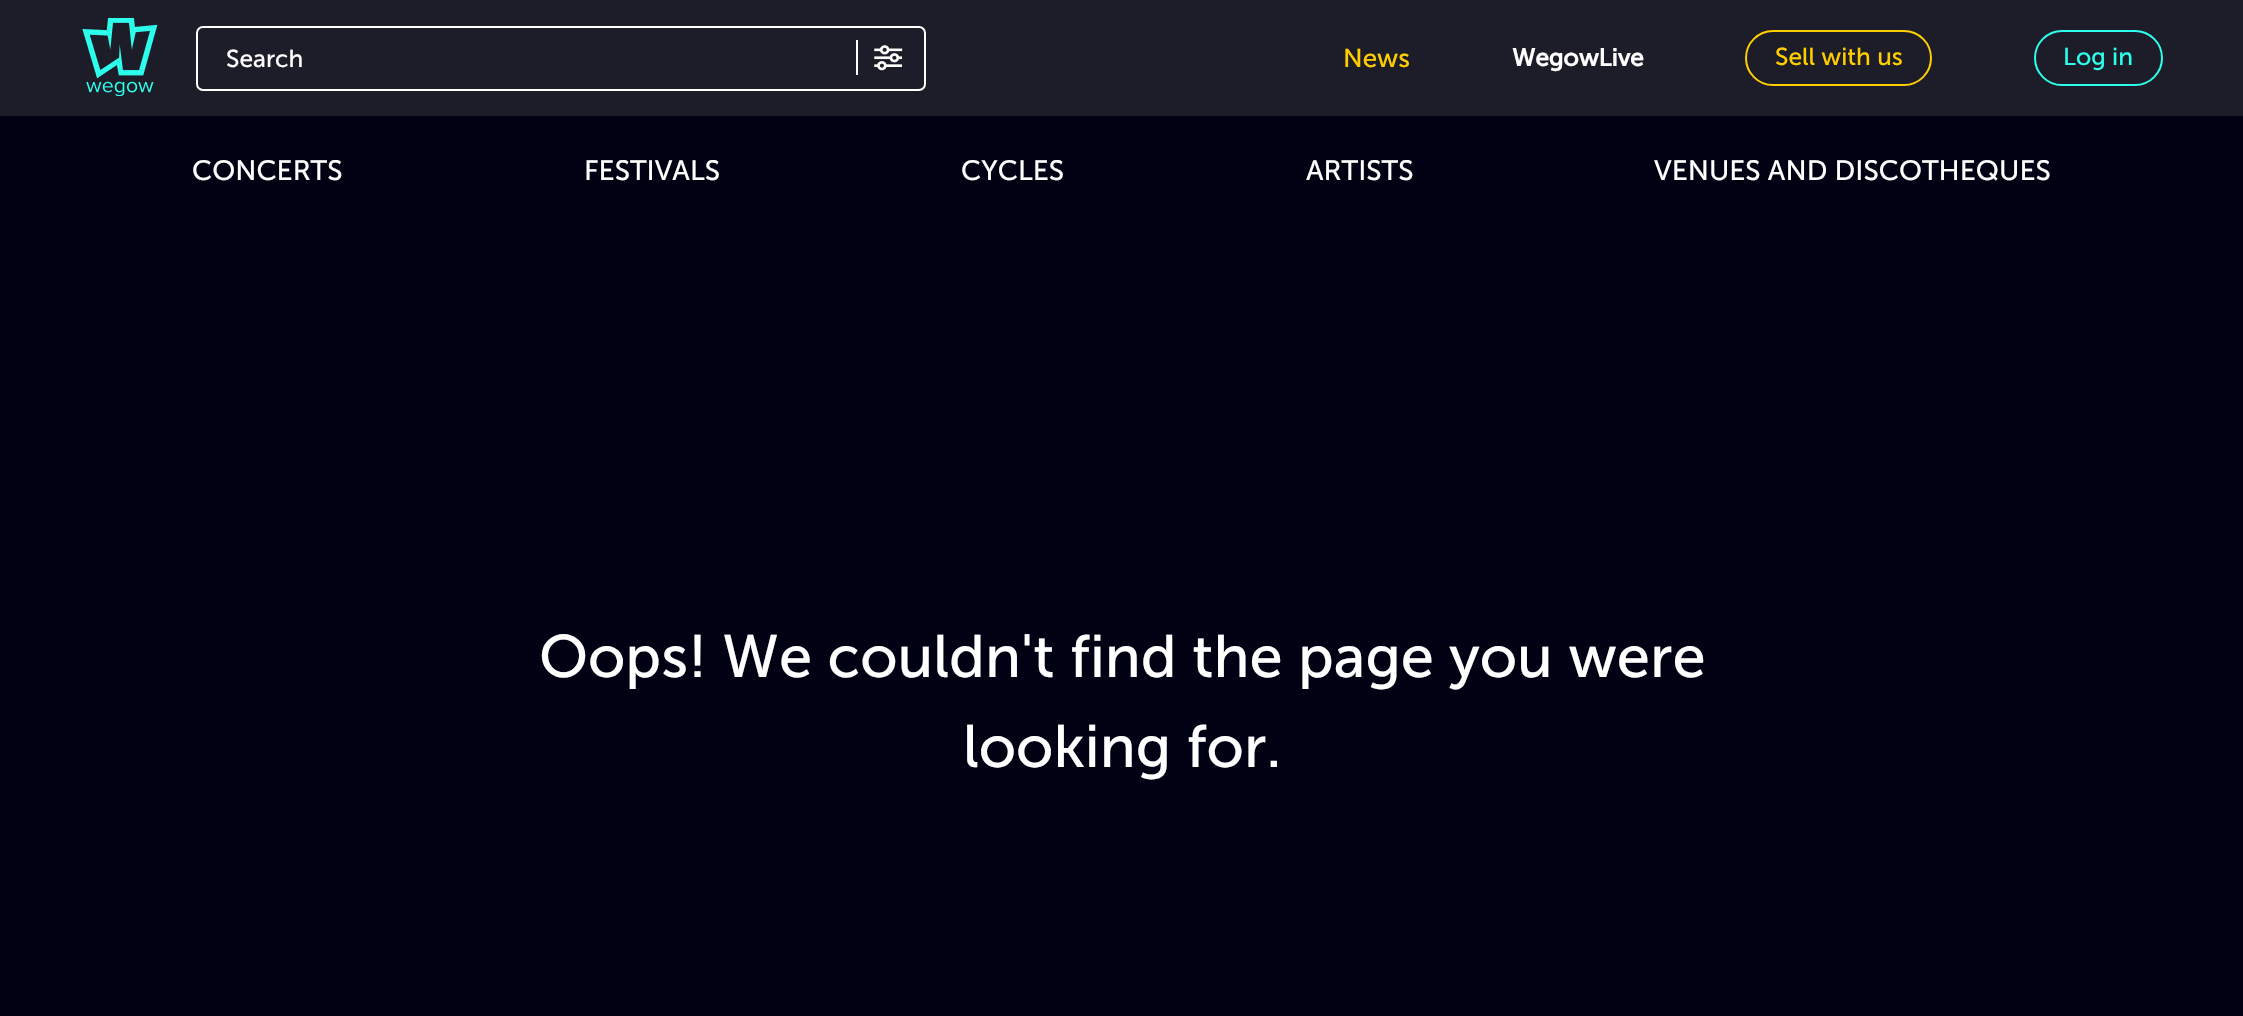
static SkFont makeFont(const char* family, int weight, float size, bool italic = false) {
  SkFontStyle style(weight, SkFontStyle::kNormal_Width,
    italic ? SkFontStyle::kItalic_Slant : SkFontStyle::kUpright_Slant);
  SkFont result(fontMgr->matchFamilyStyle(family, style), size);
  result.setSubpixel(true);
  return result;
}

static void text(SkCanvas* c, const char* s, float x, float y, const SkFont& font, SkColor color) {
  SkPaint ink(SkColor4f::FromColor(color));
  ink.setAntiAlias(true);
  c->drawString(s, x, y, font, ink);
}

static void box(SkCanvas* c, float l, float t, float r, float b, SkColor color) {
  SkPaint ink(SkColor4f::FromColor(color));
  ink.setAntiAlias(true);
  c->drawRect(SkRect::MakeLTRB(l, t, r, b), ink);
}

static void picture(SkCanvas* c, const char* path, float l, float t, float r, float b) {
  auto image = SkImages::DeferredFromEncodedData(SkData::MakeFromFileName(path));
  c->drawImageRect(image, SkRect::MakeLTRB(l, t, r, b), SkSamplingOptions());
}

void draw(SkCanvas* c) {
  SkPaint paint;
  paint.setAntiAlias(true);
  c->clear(0xff000214);
  box(c, 0, 0, 2243, 116, 0xff1c1d29);
  picture(c, "img_01.png", 82, 18, 158, 96);
  paint.setStyle(SkPaint::kStroke_Style);
  paint.setStrokeWidth(2);
  paint.setColor(0xffffffff);
  c->drawRoundRect(SkRect::MakeLTRB(197, 27, 925, 90), 6, 6, paint);
  SkFont face1 = makeFont("Museo Sans", 400, 24.5f);
  text(c, "Search", 226, 67, face1, 0xffffffff);
  box(c, 856, 40, 858, 75, 0xffffffff);
  picture(c, "img_02.png", 874, 45, 903, 71);
  SkFont face2 = makeFont("Museo Sans", 400, 26);
  text(c, "News", 1343, 67, face2, 0xffffce00);
  SkFont face3 = makeFont("Museo Sans", 700, 24.5f);
  text(c, "WegowLive", 1512, 66, face3, 0xffffffff);
  paint.setColor(0xffffce00);
  c->drawRoundRect(SkRect::MakeLTRB(1746, 31, 1931, 85), 27, 27, paint);
  text(c, "Sell with us", 1775, 65, face1, 0xffffce00);
  paint.setColor(0xff2effec);
  c->drawRoundRect(SkRect::MakeLTRB(2035, 31, 2162, 85), 27, 27, paint);
  text(c, "Log in", 2063, 65, face1, 0xff2effec);
  SkFont face4 = makeFont("Museo Sans", 400, 28);
  text(c, "CONCERTS", 192, 180, face4, 0xffffffff);
  text(c, "FESTIVALS", 584, 180, face4, 0xffffffff);
  text(c, "CYCLES", 961, 180, face4, 0xffffffff);
  text(c, "ARTISTS", 1306, 180, face4, 0xffffffff);
  text(c, "VENUES AND DISCOTHEQUES", 1654, 180, face4, 0xffffffff);
  SkFont face5 = makeFont("Museo Sans", 400, 59.75f);
  text(c, "Oops! We couldn't find the page you were", 539, 677, face5, 0xffffffff);
  text(c, "looking for.", 963, 767, face5, 0xffffffff);
}
